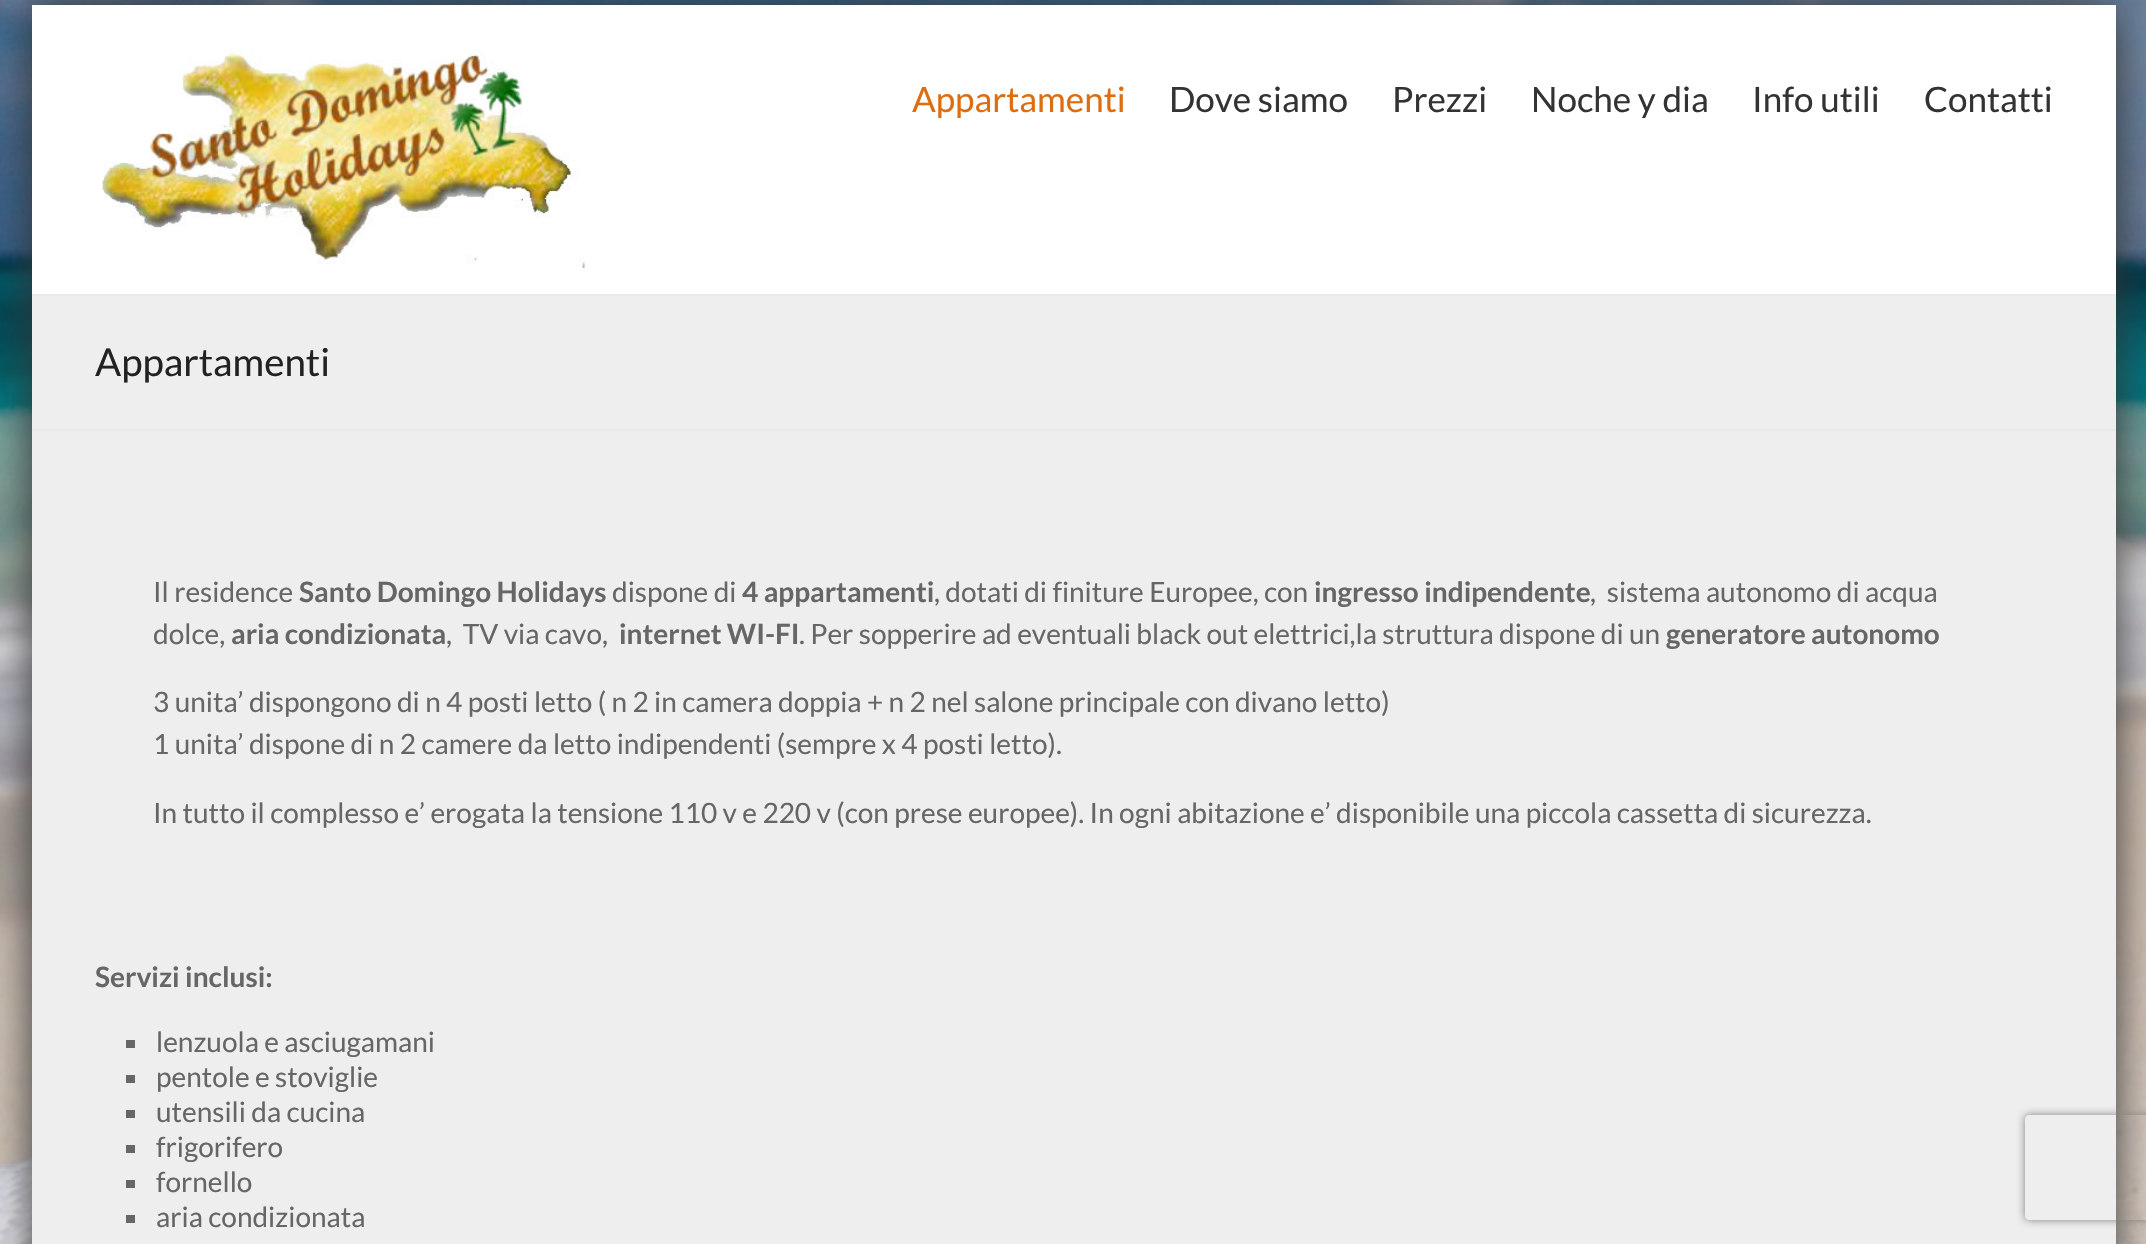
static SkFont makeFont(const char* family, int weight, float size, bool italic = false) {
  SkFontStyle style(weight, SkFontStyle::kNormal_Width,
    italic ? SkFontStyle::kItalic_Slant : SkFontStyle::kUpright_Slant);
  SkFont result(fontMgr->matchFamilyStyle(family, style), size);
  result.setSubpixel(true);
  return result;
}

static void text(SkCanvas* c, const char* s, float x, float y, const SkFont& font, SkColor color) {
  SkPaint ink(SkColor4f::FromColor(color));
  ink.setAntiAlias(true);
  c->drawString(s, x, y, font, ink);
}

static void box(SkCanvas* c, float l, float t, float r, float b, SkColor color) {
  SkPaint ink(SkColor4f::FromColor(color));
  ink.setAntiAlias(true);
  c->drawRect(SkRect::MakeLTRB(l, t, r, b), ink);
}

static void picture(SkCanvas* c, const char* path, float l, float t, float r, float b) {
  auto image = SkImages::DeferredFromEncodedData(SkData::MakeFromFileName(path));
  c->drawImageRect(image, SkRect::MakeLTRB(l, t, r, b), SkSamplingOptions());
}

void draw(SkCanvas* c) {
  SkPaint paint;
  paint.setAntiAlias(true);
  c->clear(0xffffffff);
  picture(c, "img_01.png", 0, 0, 2146, 1244);
  paint.setColor(0xff333333);
  paint.setMaskFilter(SkMaskFilter::MakeBlur(kNormal_SkBlurStyle, 22));
  c->drawRoundRect(SkRect::MakeLTRB(32, 5, 2116, 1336), 26, 26, paint);
  paint.setMaskFilter(nullptr);
  box(c, 32, 296, 2116, 1244, 0xffeeeeee);
  box(c, 32, 5, 2116, 294, 0xffffffff);
  box(c, 32, 294, 2116, 296, 0xffeaeaea);
  picture(c, "img_02.png", 101, 50, 585, 268);
  SkFont face1 = makeFont("Lato", 400, 35);
  text(c, "Appartamenti", 912, 112, face1, 0xffdd6d11);
  text(c, "Dove siamo", 1169, 112, face1, 0xff333333);
  text(c, "Prezzi", 1392, 112, face1, 0xff333333);
  text(c, "Noche y dia", 1531, 112, face1, 0xff333333);
  text(c, "Info utili", 1752, 112, face1, 0xff333333);
  text(c, "Contatti", 1924, 112, face1, 0xff333333);
  box(c, 32, 429, 2116, 431, 0xffeaeaea);
  SkFont face2 = makeFont("Lato", 400, 38.5f);
  text(c, "Appartamenti", 95, 376, face2, 0xff222222);
  SkFont face3 = makeFont("Lato", 400, 28);
  text(c, "Il residence", 153, 602, face3, 0xff666666);
  SkFont face4 = makeFont("Lato", 700, 28);
  text(c, "Santo Domingo Holidays", 299, 602, face4, 0xff666666);
  text(c, "dispone di", 612, 602, face3, 0xff666666);
  text(c, "4 appartamenti", 742, 602, face4, 0xff666666);
  text(c, ", dotati di finiture Europee, con", 934, 602, face3, 0xff666666);
  text(c, "ingresso indipendente", 1314, 602, face4, 0xff666666);
  text(c, ",  sistema autonomo di acqua", 1590, 602, face3, 0xff666666);
  text(c, "dolce,", 153, 644, face3, 0xff666666);
  text(c, "aria condizionata", 231, 644, face4, 0xff666666);
  text(c, ",  TV via cavo,", 446, 644, face3, 0xff666666);
  text(c, "internet WI-FI", 619, 644, face4, 0xff666666);
  text(c, ". Per sopperire ad eventuali black out elettrici,la struttura dispone di un", 799, 644, face3, 0xff666666);
  text(c, "generatore autonomo", 1666, 644, face4, 0xff666666);
  text(c, "3 unita’ dispongono di n 4 posti letto ( n 2 in camera doppia + n 2 nel salone principale con divano letto)", 153, 712, face3, 0xff666666);
  text(c, "1 unita’ dispone di n 2 camere da letto indipendenti (sempre x 4 posti letto).", 153, 754, face3, 0xff666666);
  text(c, "In tutto il complesso e’ erogata la tensione 110 v e 220 v (con prese europee). In ogni abitazione e’ disponibile una piccola cassetta di sicurezza.", 153, 823, face3, 0xff666666);
  text(c, "Servizi inclusi:", 95, 987, face4, 0xff666666);
  box(c, 126, 1040, 135, 1048, 0xff666666);
  text(c, "lenzuola e asciugamani", 156, 1052, face3, 0xff666666);
  box(c, 126, 1075, 135, 1083, 0xff666666);
  text(c, "pentole e stoviglie", 156, 1087, face3, 0xff666666);
  box(c, 126, 1110, 135, 1118, 0xff666666);
  text(c, "utensili da cucina", 156, 1122, face3, 0xff666666);
  box(c, 126, 1145, 135, 1153, 0xff666666);
  text(c, "frigorifero", 156, 1157, face3, 0xff666666);
  box(c, 126, 1180, 135, 1188, 0xff666666);
  text(c, "fornello", 156, 1192, face3, 0xff666666);
  box(c, 126, 1215, 135, 1223, 0xff666666);
  text(c, "aria condizionata", 156, 1227, face3, 0xff666666);
  c->save();
  c->clipPath(SkPathBuilder(SkPathFillType::kEvenOdd).moveTo(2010, 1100).lineTo(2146, 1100).lineTo(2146, 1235).lineTo(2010, 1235).close().moveTo(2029, 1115).lineTo(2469, 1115).cubicTo(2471, 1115, 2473, 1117, 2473, 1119).lineTo(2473, 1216).cubicTo(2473, 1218, 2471, 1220, 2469, 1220).lineTo(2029, 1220).cubicTo(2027, 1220, 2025, 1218, 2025, 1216).lineTo(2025, 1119).cubicTo(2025, 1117, 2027, 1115, 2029, 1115).close().detach(), true);
  paint.setColor(0xff808080);
  paint.setMaskFilter(SkMaskFilter::MakeBlur(kNormal_SkBlurStyle, 4.5f));
  c->drawRoundRect(SkRect::MakeLTRB(2025, 1115, 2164, 1220), 4, 4, paint);
  paint.setMaskFilter(nullptr);
  c->restore();
}
